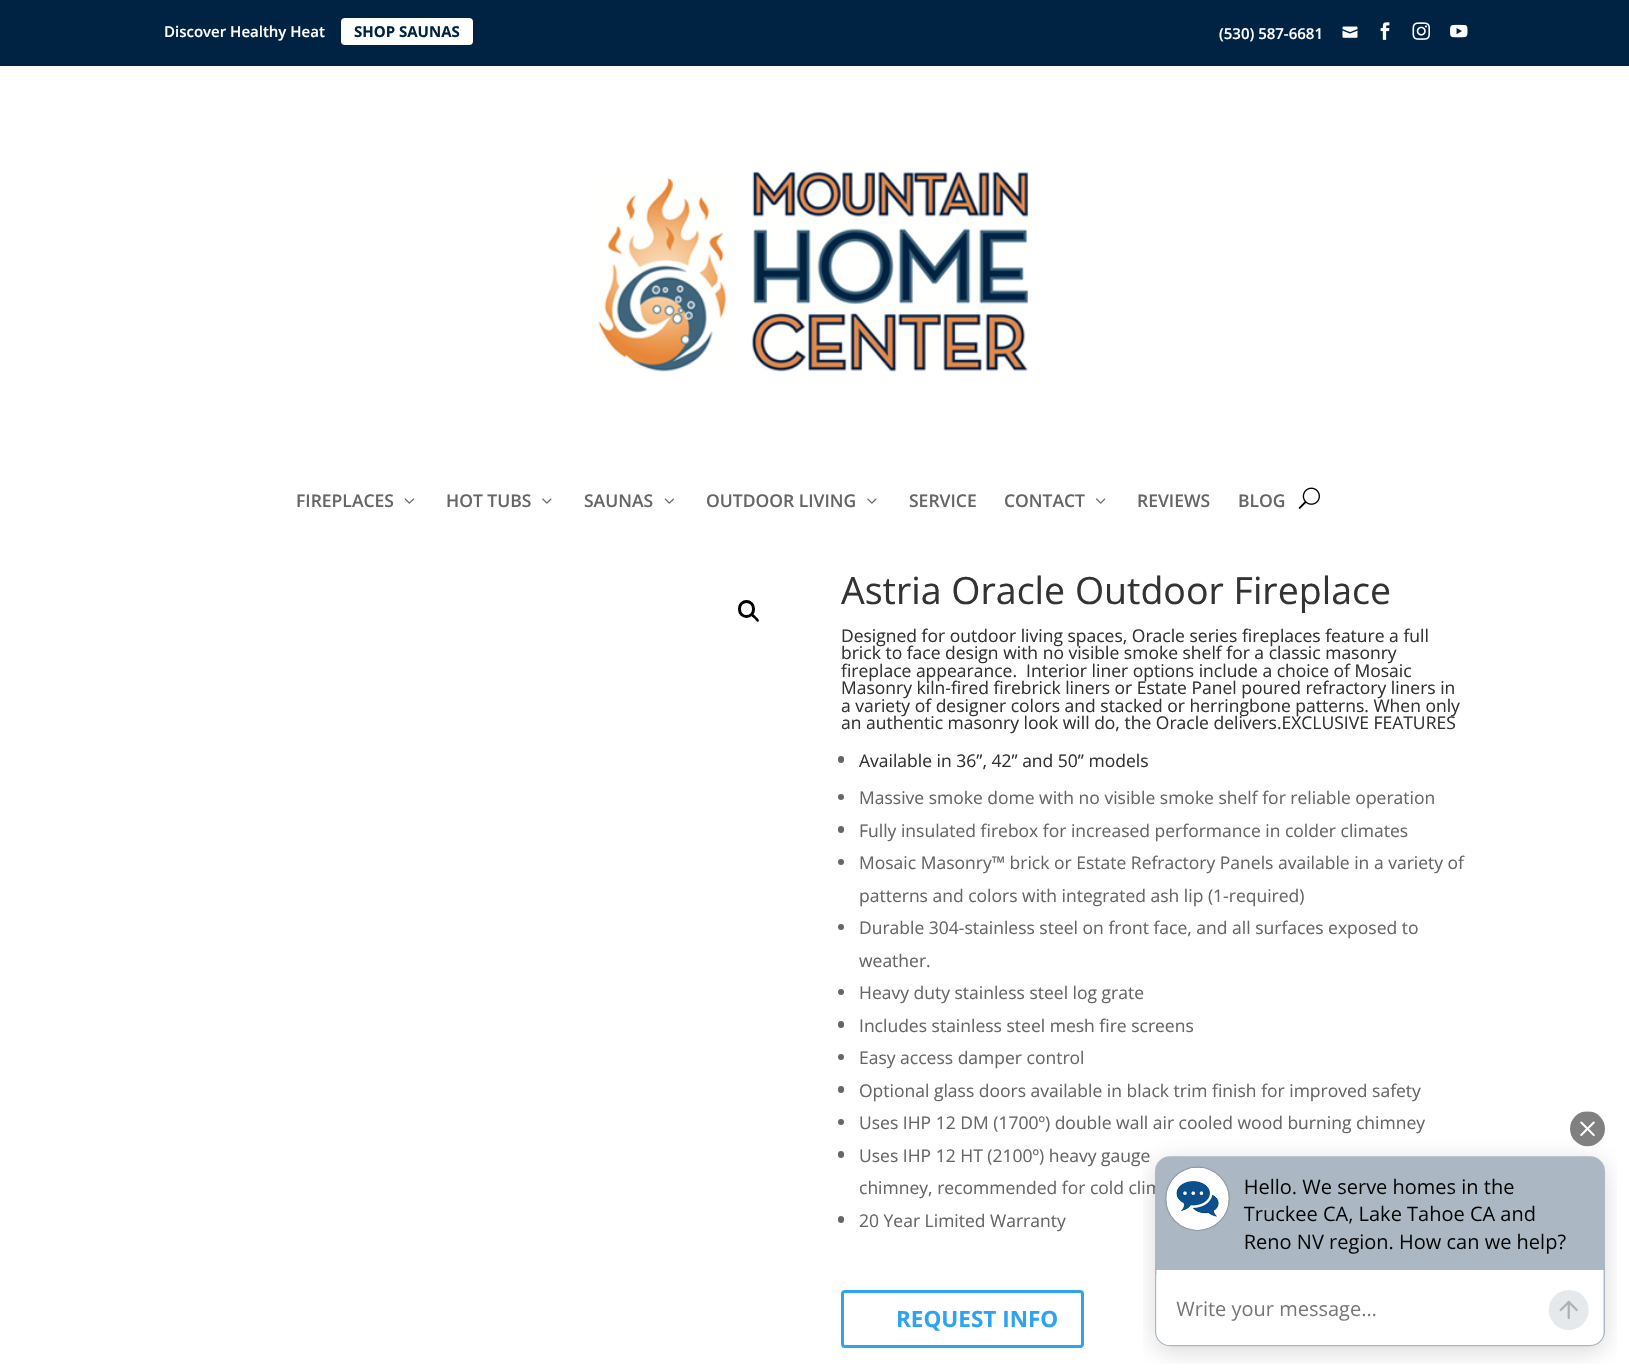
static SkFont makeFont(const char* family, int weight, float size, bool italic = false) {
  SkFontStyle style(weight, SkFontStyle::kNormal_Width,
    italic ? SkFontStyle::kItalic_Slant : SkFontStyle::kUpright_Slant);
  SkFont result(fontMgr->matchFamilyStyle(family, style), size);
  result.setSubpixel(true);
  return result;
}

static void text(SkCanvas* c, const char* s, float x, float y, const SkFont& font, SkColor color) {
  SkPaint ink(SkColor4f::FromColor(color));
  ink.setAntiAlias(true);
  c->drawString(s, x, y, font, ink);
}

static void box(SkCanvas* c, float l, float t, float r, float b, SkColor color) {
  SkPaint ink(SkColor4f::FromColor(color));
  ink.setAntiAlias(true);
  c->drawRect(SkRect::MakeLTRB(l, t, r, b), ink);
}

static void roundBox(SkCanvas* c, float l, float t, float r, float b, float radius, SkColor color) {
  SkPaint ink(SkColor4f::FromColor(color));
  ink.setAntiAlias(true);
  c->drawRoundRect(SkRect::MakeLTRB(l, t, r, b), radius, radius, ink);
}

static void picture(SkCanvas* c, const char* path, float l, float t, float r, float b) {
  auto image = SkImages::DeferredFromEncodedData(SkData::MakeFromFileName(path));
  c->drawImageRect(image, SkRect::MakeLTRB(l, t, r, b), SkSamplingOptions());
}

void draw(SkCanvas* c) {
  SkPaint paint;
  paint.setAntiAlias(true);
  c->clear(0xffffffff);
  box(c, 0, 0, 1629, 66, 0xff002344);
  SkFont face1 = makeFont("Open Sans", 600, 15);
  text(c, "Discover Healthy Heat", 164, 37, face1, 0xffffffff);
  roundBox(c, 341, 18, 473, 45, 4, 0xffffffff);
  SkFont face2 = makeFont("Open Sans", 700, 15);
  text(c, "SHOP SAUNAS", 354, 37, face2, 0xff002344);
  text(c, "(530) 587-6681", 1219, 39, face1, 0xffffffff);
  picture(c, "img_01.png", 1342, 26, 1358, 38);
  picture(c, "img_02.png", 1380, 22, 1390, 40);
  picture(c, "img_03.png", 1412, 22, 1430, 40);
  picture(c, "img_04.png", 1450, 24, 1468, 38);
  picture(c, "img_05.png", 597, 171, 1029, 372);
  SkFont face3 = makeFont("Open Sans", 600, 17.5f);
  text(c, "FIREPLACES", 296, 507, face3, 0xff666666);
  picture(c, "img_06.png", 404, 498, 414, 504);
  text(c, "HOT TUBS", 446, 507, face3, 0xff666666);
  picture(c, "img_07.png", 542, 498, 552, 504);
  text(c, "SAUNAS", 584, 507, face3, 0xff666666);
  picture(c, "img_06.png", 664, 498, 674, 504);
  text(c, "OUTDOOR LIVING", 706, 507, face3, 0xff666666);
  picture(c, "img_07.png", 867, 498, 877, 504);
  text(c, "SERVICE", 909, 507, face3, 0xff666666);
  text(c, "CONTACT", 1004, 507, face3, 0xff666666);
  picture(c, "img_08.png", 1096, 498, 1106, 504);
  text(c, "REVIEWS", 1137, 507, face3, 0xff666666);
  text(c, "BLOG", 1238, 507, face3, 0xff666666);
  picture(c, "img_09.png", 1298, 487, 1320, 509);
  paint.setStyle(SkPaint::kStroke_Style);
  paint.setStrokeWidth(3);
  paint.setColor(0xff000000);
  c->drawRoundRect(SkRect::MakeLTRB(739.5f, 601.5f, 753.5f, 616.5f), 7, 7, paint);
  paint.setStyle(SkPaint::kFill_Style);
  c->drawPath(SkPathBuilder().moveTo(751.5f, 614.5f).cubicTo(753, 613, 755.5f, 616, 756, 617).cubicTo(757, 617.5f, 760, 620, 758.5f, 621.5f).cubicTo(757.5f, 623, 755, 619.5f, 754.5f, 618.5f).cubicTo(753.5f, 618, 750, 615.5f, 751.5f, 614.5f).close().detach(), paint);
  SkFont face4 = makeFont("Open Sans", 400, 37.5f);
  text(c, "Astria Oracle Outdoor Fireplace", 841, 604, face4, 0xff333333);
  SkFont face5 = makeFont("Open Sans", 400, 17.5f);
  text(c, "Designed for outdoor living spaces, Oracle series fireplaces feature a full", 841, 642, face5, 0xff333333);
  text(c, "brick to face design with no visible smoke shelf for a classic masonry", 841, 659, face5, 0xff333333);
  text(c, "fireplace appearance.  Interior liner options include a choice of Mosaic", 841, 677, face5, 0xff333333);
  text(c, "Masonry kiln-fired firebrick liners or Estate Panel poured refractory liners in", 841, 694, face5, 0xff333333);
  text(c, "a variety of designer colors and stacked or herringbone patterns. When only", 841, 712, face5, 0xff333333);
  text(c, "an authentic masonry look will do, the Oracle delivers.EXCLUSIVE FEATURES", 841, 729, face5, 0xff333333);
  roundBox(c, 838, 756, 844, 763, 3, 0xff666666);
  text(c, "Available in 36”, 42” and 50” models", 859, 767, face5, 0xff333333);
  paint.setColor(0xff666666);
  c->drawCircle(841, 797, 3, paint);
  text(c, "Massive smoke dome with no visible smoke shelf for reliable operation", 859, 804, face5, 0xff666666);
  roundBox(c, 838, 826, 844, 833, 3, 0xff666666);
  text(c, "Fully insulated firebox for increased performance in colder climates", 859, 837, face5, 0xff666666);
  c->drawCircle(841, 862, 3, paint);
  text(c, "Mosaic Masonry™ brick or Estate Refractory Panels available in a variety of", 859, 869, face5, 0xff666666);
  text(c, "patterns and colors with integrated ash lip (1-required)", 859, 902, face5, 0xff666666);
  c->drawCircle(841, 927, 3, paint);
  text(c, "Durable 304-stainless steel on front face, and all surfaces exposed to", 859, 934, face5, 0xff666666);
  text(c, "weather.", 859, 967, face5, 0xff666666);
  c->drawCircle(841, 992, 3, paint);
  text(c, "Heavy duty stainless steel log grate", 859, 999, face5, 0xff666666);
  roundBox(c, 838, 1021, 844, 1028, 3, 0xff666666);
  text(c, "Includes stainless steel mesh fire screens", 859, 1032, face5, 0xff666666);
  c->drawCircle(841, 1057, 3, paint);
  text(c, "Easy access damper control", 859, 1064, face5, 0xff666666);
  roundBox(c, 838, 1086, 844, 1093, 3, 0xff666666);
  text(c, "Optional glass doors available in black trim finish for improved safety", 859, 1097, face5, 0xff666666);
  c->drawCircle(841, 1122, 3, paint);
  text(c, "Uses IHP 12 DM (1700º) double wall air cooled wood burning chimney", 859, 1129, face5, 0xff666666);
  roundBox(c, 838, 1151, 844, 1158, 3, 0xff666666);
  text(c, "Uses IHP 12 HT (2100º) heavy gauge", 859, 1162, face5, 0xff666666);
  text(c, "chimney, recommended for cold clim", 859, 1194, face5, 0xff666666);
  roundBox(c, 838, 1216, 844, 1223, 3, 0xff666666);
  text(c, "20 Year Limited Warranty", 859, 1227, face5, 0xff666666);
  paint.setStyle(SkPaint::kStroke_Style);
  paint.setColor(0xff2ea3f2);
  c->drawRoundRect(SkRect::MakeLTRB(842.5f, 1291.5f, 1082.5f, 1346.5f), 2.5f, 2.5f, paint);
  SkFont face6 = makeFont("Open Sans", 700, 22.5f);
  text(c, "REQUEST INFO", 896, 1327, face6, 0xff2ea3f2);
  picture(c, "img_10.png", 1143, 1111, 1617, 1364);
}
